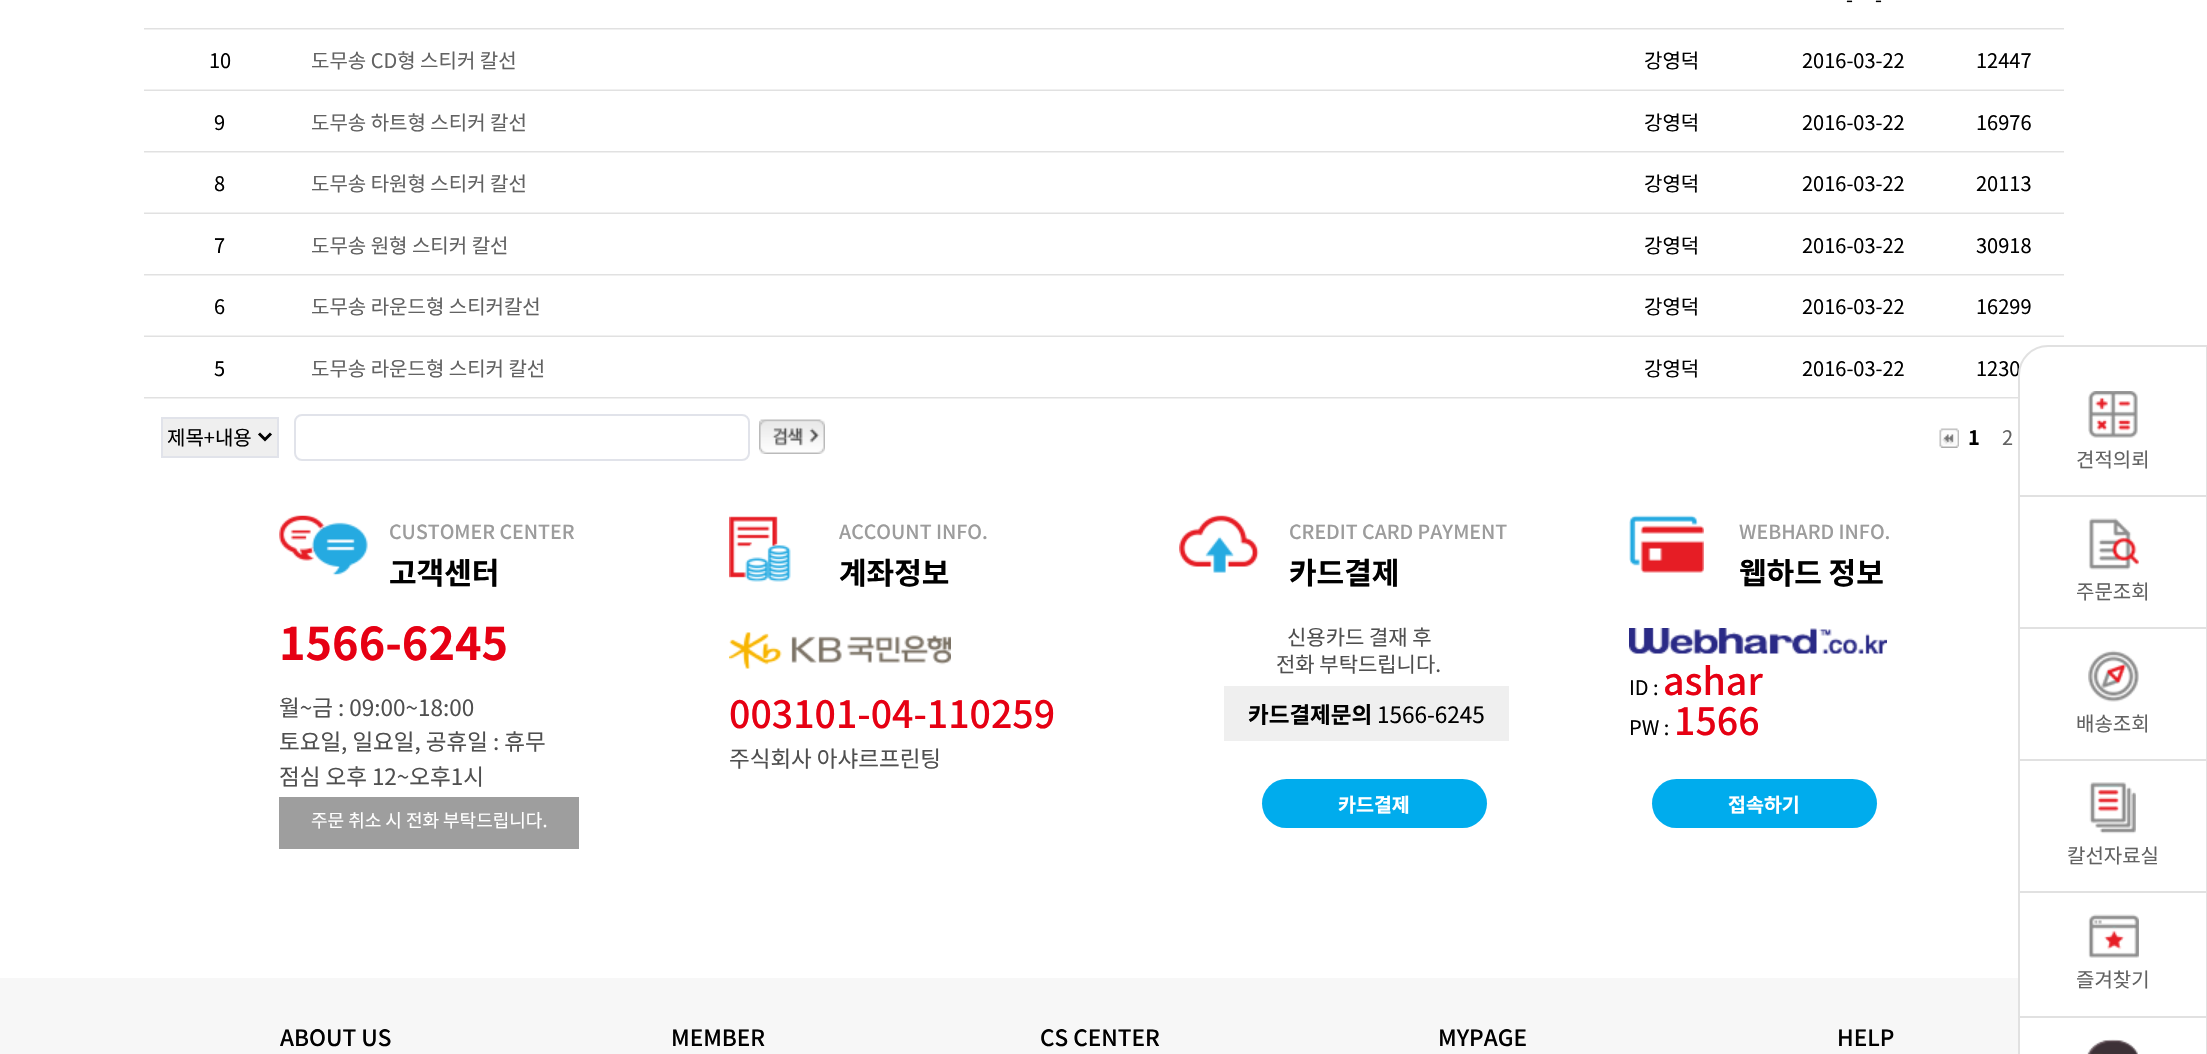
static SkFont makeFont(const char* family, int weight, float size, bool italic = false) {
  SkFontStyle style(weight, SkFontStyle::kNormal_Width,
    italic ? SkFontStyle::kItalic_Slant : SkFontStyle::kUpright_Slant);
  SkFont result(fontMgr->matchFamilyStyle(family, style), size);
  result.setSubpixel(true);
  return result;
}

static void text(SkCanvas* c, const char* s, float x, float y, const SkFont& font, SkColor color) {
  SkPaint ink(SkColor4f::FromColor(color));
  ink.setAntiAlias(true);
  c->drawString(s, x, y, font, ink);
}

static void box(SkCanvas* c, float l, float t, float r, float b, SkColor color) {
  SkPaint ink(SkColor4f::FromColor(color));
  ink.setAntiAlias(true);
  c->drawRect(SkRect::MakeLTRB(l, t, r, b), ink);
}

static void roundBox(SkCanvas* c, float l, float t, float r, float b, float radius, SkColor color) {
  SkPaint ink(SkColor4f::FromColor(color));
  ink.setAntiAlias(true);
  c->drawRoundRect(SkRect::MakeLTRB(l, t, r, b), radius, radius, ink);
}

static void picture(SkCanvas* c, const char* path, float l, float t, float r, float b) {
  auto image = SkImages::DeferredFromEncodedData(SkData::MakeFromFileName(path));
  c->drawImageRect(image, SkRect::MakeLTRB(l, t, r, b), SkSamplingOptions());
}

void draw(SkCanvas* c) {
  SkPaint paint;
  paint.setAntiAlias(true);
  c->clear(0xffffffff);
  SkFont face1 = makeFont("Noto Sans KR", 400, 20);
  text(c, "-", 1846, 7, face1, 0xff000000);
  text(c, "-", 1875, 7, face1, 0xff000000);
  picture(c, "img_01.png", 144, 28, 2064, 30);
  text(c, "10", 209, 68, face1, 0xff000000);
  text(c, "도무송 CD형 스티커 칼선", 311, 68, face1, 0xff626262);
  text(c, "강영덕", 1644, 68, face1, 0xff000000);
  text(c, "2016-03-22", 1802, 68, face1, 0xff000000);
  text(c, "12447", 1976, 68, face1, 0xff000000);
  picture(c, "img_02.png", 144, 89, 2064, 91);
  text(c, "9", 214, 130, face1, 0xff000000);
  text(c, "도무송 하트형 스티커 칼선", 311, 130, face1, 0xff626262);
  text(c, "강영덕", 1644, 130, face1, 0xff000000);
  text(c, "2016-03-22", 1802, 130, face1, 0xff000000);
  text(c, "16976", 1976, 130, face1, 0xff000000);
  picture(c, "img_01.png", 144, 151, 2064, 153);
  text(c, "8", 214, 191, face1, 0xff000000);
  text(c, "도무송 타원형 스티커 칼선", 311, 191, face1, 0xff626262);
  text(c, "강영덕", 1644, 191, face1, 0xff000000);
  text(c, "2016-03-22", 1802, 191, face1, 0xff000000);
  text(c, "20113", 1976, 191, face1, 0xff000000);
  picture(c, "img_02.png", 144, 212, 2064, 214);
  text(c, "7", 214, 253, face1, 0xff000000);
  text(c, "도무송 원형 스티커 칼선", 311, 253, face1, 0xff626262);
  text(c, "강영덕", 1644, 253, face1, 0xff000000);
  text(c, "2016-03-22", 1802, 253, face1, 0xff000000);
  text(c, "30918", 1976, 253, face1, 0xff000000);
  picture(c, "img_01.png", 144, 274, 2064, 276);
  text(c, "6", 214, 314, face1, 0xff000000);
  text(c, "도무송 라운드형 스티커칼선", 311, 314, face1, 0xff626262);
  text(c, "강영덕", 1644, 314, face1, 0xff000000);
  text(c, "2016-03-22", 1802, 314, face1, 0xff000000);
  text(c, "16299", 1976, 314, face1, 0xff000000);
  picture(c, "img_02.png", 144, 335, 2064, 337);
  text(c, "5", 214, 376, face1, 0xff000000);
  text(c, "도무송 라운드형 스티커 칼선", 311, 376, face1, 0xff626262);
  text(c, "강영덕", 1644, 376, face1, 0xff000000);
  text(c, "2016-03-22", 1802, 376, face1, 0xff000000);
  text(c, "1230", 1976, 376, face1, 0xff000000);
  picture(c, "img_03.png", 144, 397, 2018, 399);
  paint.setColor(0xffefefef);
  c->drawRect(SkRect::MakeLTRB(162, 418, 278, 457), paint);
  paint.setStyle(SkPaint::kStroke_Style);
  paint.setStrokeWidth(2);
  paint.setColor(0xffe1e3ea);
  c->drawRect(SkRect::MakeLTRB(162, 418, 278, 457), paint);
  paint.setStrokeWidth(3);
  paint.setColor(0xff000000);
  c->drawPath(SkPathBuilder().moveTo(259, 433.5f).lineTo(265, 439.5f).lineTo(271, 433.5f).detach(), paint);
  text(c, "제목+내용", 167, 445, face1, 0xff000000);
  paint.setStrokeWidth(2);
  paint.setColor(0xffe1e3ea);
  c->drawRoundRect(SkRect::MakeLTRB(295, 415, 749, 460), 7, 7, paint);
  picture(c, "img_04.png", 759, 419, 825, 454);
  picture(c, "img_05.png", 1939, 428, 1959, 448);
  SkFont face2 = makeFont("Noto Sans KR", 700, 20);
  text(c, "1", 1968, 445, face2, 0xff000000);
  text(c, "2", 2002, 445, face1, 0xff626262);
  picture(c, "img_06.png", 279, 515, 368, 576);
  SkFont face3 = makeFont("Noto Sans KR", 500, 19.5f);
  text(c, "CUSTOMER CENTER", 389, 539, face3, 0xff9c9c9c);
  SkFont face4 = makeFont("Noto Sans KR", 700, 30);
  text(c, "고객센터", 389, 584, face4, 0xff000000);
  SkFont face5 = makeFont("Noto Sans KR", 700, 45);
  text(c, "1566-6245", 279, 660, face5, 0xffe60013);
  SkFont face6 = makeFont("Noto Sans KR", 400, 22.5f);
  text(c, "월~금 : 09:00~18:00", 279, 716, face6, 0xff4f4f4f);
  text(c, "토요일, 일요일, 공휴일 : 휴무", 279, 750, face6, 0xff4f4f4f);
  text(c, "점심 오후 12~오후1시", 279, 785, face6, 0xff4f4f4f);
  box(c, 279, 797, 579, 849, 0xff9e9e9e);
  SkFont face7 = makeFont("Noto Sans KR", 400, 18);
  text(c, "주문 취소 시 전화 부탁드립니다.", 311, 827, face7, 0xffffffff);
  picture(c, "img_07.png", 729, 516, 791, 582);
  text(c, "ACCOUNT INFO.", 839, 539, face3, 0xff9c9c9c);
  text(c, "계좌정보", 839, 584, face4, 0xff000000);
  picture(c, "img_08.png", 729, 632, 951, 669);
  SkFont face8 = makeFont("Noto Sans KR", 500, 37.5f);
  text(c, "003101-04-110259", 729, 728, face8, 0xffe60013);
  text(c, "주식회사 아샤르프린팅", 729, 767, face6, 0xff4f4f4f);
  picture(c, "img_09.png", 1179, 515, 1259, 573);
  text(c, "CREDIT CARD PAYMENT", 1289, 539, face3, 0xff9c9c9c);
  text(c, "카드결제", 1289, 584, face4, 0xff000000);
  SkFont face9 = makeFont("Noto Sans KR", 400, 21);
  text(c, "신용카드 결재 후", 1287, 645, face9, 0xff4f4f4f);
  text(c, "전화 부탁드립니다.", 1276, 672, face9, 0xff4f4f4f);
  box(c, 1224, 686, 1509, 741, 0xffefefef);
  SkFont face10 = makeFont("Noto Sans KR", 700, 22.5f);
  text(c, "카드결제문의", 1248, 723, face10, 0xff000000);
  text(c, "1566-6245", 1377, 723, face6, 0xff000000);
  roundBox(c, 1262, 779, 1487, 828, 24.5f, 0xff00aced);
  SkFont face11 = makeFont("Noto Sans KR", 700, 19.5f);
  text(c, "카드결제", 1338, 812, face11, 0xffffffff);
  picture(c, "img_10.png", 1629, 515, 1704, 573);
  text(c, "WEBHARD INFO.", 1739, 539, face3, 0xff9c9c9c);
  text(c, "웹하드 정보", 1739, 584, face4, 0xff000000);
  picture(c, "img_11.png", 1629, 628, 1887, 654);
  text(c, "ID :", 1629, 695, face1, 0xff000000);
  text(c, "ashar", 1663, 695, face8, 0xffe60013);
  text(c, "PW :", 1629, 735, face1, 0xff000000);
  text(c, "1566", 1674, 735, face8, 0xffe60013);
  roundBox(c, 1652, 779, 1877, 828, 24.5f, 0xff00aced);
  text(c, "접속하기", 1728, 812, face11, 0xffffffff);
  paint.setStyle(SkPaint::kFill_Style);
  paint.setColor(0xffffffff);
  c->drawPath(SkPathBuilder().moveTo(2048, 346).lineTo(2207, 346).lineTo(2207, 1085).lineTo(2048, 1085).cubicTo(2032, 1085, 2019, 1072, 2019, 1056).lineTo(2019, 375).cubicTo(2019, 359, 2032, 346, 2048, 346).close().detach(), paint);
  paint.setStyle(SkPaint::kStroke_Style);
  paint.setColor(0xffe1e1e1);
  c->drawPath(SkPathBuilder().moveTo(2048, 346).lineTo(2207, 346).lineTo(2207, 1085).lineTo(2048, 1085).cubicTo(2032, 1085, 2019, 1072, 2019, 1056).lineTo(2019, 375).cubicTo(2019, 359, 2032, 346, 2048, 346).close().detach(), paint);
  box(c, 2019, 495, 2207, 497, 0xffe1e1e1);
  picture(c, "img_12.png", 2088, 391, 2138, 438);
  text(c, "견적의뢰", 2076, 467, face1, 0xff626262);
  box(c, 2019, 627, 2207, 629, 0xffe1e1e1);
  picture(c, "img_13.png", 2088, 518, 2139, 570);
  text(c, "주문조회", 2076, 599, face1, 0xff626262);
  box(c, 2019, 759, 2207, 761, 0xffe1e1e1);
  picture(c, "img_14.png", 2088, 650, 2139, 702);
  text(c, "배송조회", 2076, 731, face1, 0xff626262);
  box(c, 2019, 891, 2207, 893, 0xffe1e1e1);
  picture(c, "img_15.png", 2089, 782, 2136, 834);
  text(c, "칼선자료실", 2067, 863, face1, 0xff626262);
  box(c, 2019, 1016, 2207, 1018, 0xffe1e1e1);
  picture(c, "img_16.png", 2088, 914, 2139, 958);
  text(c, "즐겨찾기", 2076, 987, face1, 0xff626262);
  picture(c, "img_17.png", 2087, 1039, 2138, 1054);
  box(c, 0, 978, 2018, 1054, 0xfff7f7f7);
  SkFont face12 = makeFont("Noto Sans KR", 500, 22.5f);
  text(c, "ABOUT US", 280, 1046, face12, 0xff000000);
  text(c, "MEMBER", 671, 1046, face12, 0xff000000);
  text(c, "CS CENTER", 1040, 1046, face12, 0xff000000);
  text(c, "MYPAGE", 1438, 1046, face12, 0xff000000);
  text(c, "HELP", 1837, 1046, face12, 0xff000000);
}
